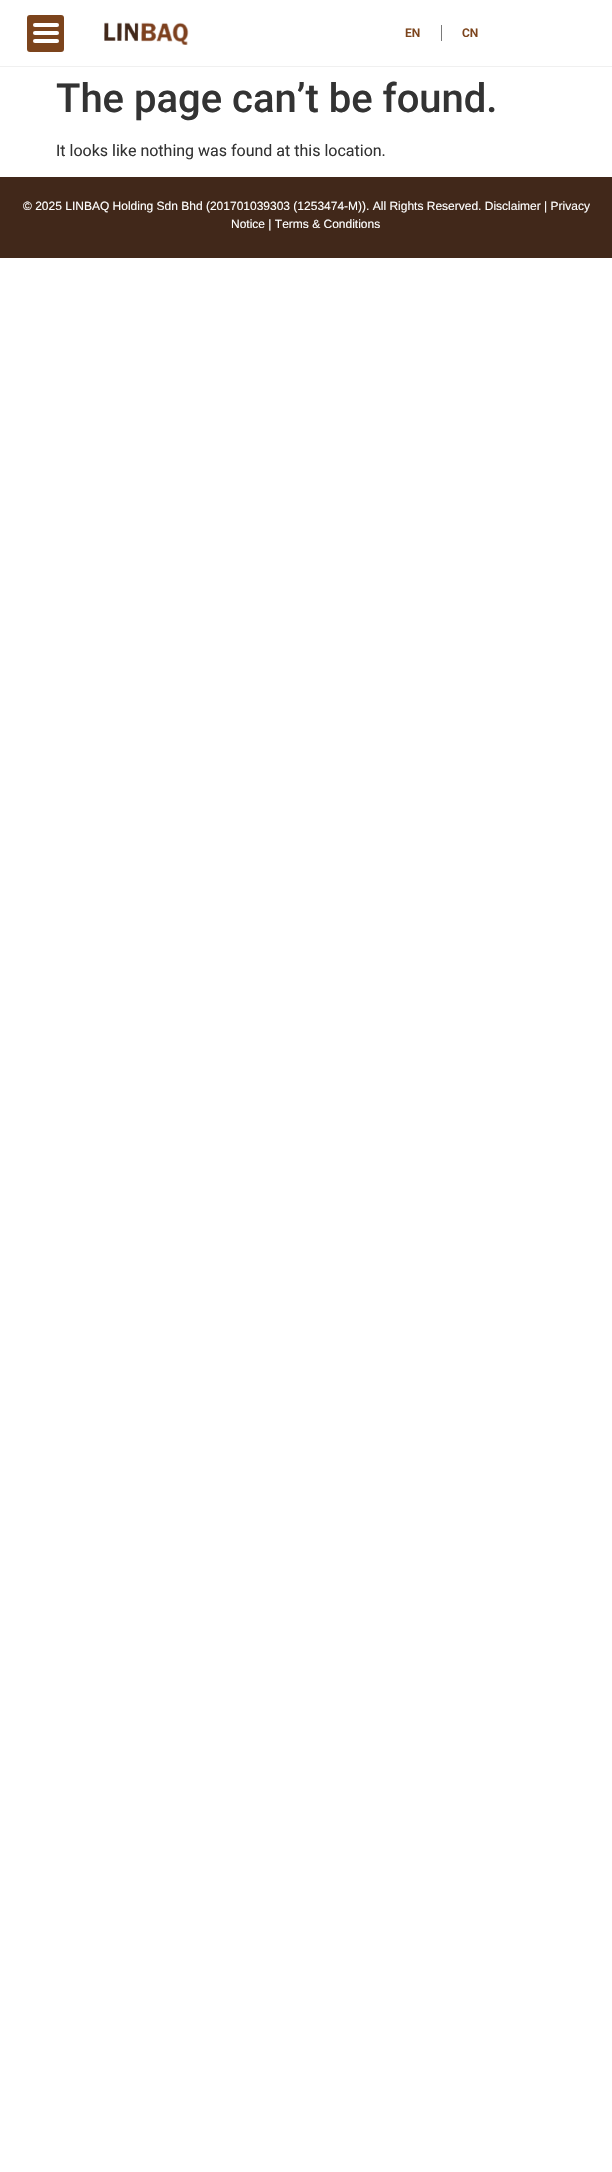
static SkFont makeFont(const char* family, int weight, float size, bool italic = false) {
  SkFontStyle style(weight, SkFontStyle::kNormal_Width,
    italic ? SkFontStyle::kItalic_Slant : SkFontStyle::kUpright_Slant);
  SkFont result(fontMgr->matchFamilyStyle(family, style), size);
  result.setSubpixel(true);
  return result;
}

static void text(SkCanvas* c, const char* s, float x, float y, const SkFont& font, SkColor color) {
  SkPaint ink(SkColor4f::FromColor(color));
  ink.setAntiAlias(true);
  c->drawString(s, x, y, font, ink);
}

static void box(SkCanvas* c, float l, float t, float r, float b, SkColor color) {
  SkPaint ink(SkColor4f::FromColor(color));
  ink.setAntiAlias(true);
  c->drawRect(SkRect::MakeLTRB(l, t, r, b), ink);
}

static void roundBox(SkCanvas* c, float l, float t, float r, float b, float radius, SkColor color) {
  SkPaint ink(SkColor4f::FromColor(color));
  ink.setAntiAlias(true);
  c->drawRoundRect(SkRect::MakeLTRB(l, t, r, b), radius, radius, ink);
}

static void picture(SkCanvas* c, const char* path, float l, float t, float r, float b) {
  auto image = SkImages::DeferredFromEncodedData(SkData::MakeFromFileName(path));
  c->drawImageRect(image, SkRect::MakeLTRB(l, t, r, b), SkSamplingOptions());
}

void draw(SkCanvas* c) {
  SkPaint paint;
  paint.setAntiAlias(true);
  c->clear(0xffffffff);
  box(c, 0, 66, 612, 67, 0xfff0f0f0);
  roundBox(c, 27, 15, 64, 52, 3, 0xff7c441c);
  roundBox(c, 33, 31, 59, 35, 2, 0xffffffff);
  roundBox(c, 33, 23, 59, 27, 2, 0xffffffff);
  roundBox(c, 33, 39, 59, 43, 2, 0xffffffff);
  picture(c, "img_01.png", 104, 22, 189, 45);
  SkFont face1 = makeFont("Roboto", 600, 12);
  text(c, "EN", 405, 37, face1, 0xff7c441c);
  box(c, 441, 25, 442, 41, 0xff7a7a7a);
  text(c, "CN", 462, 37, face1, 0xff7c441c);
  SkFont face2 = makeFont("Roboto", 500, 40);
  text(c, "The page can’t be found.", 56, 112, face2, 0xff333333);
  SkFont face3 = makeFont("Roboto", 400, 16);
  text(c, "It looks like nothing was found at this location.", 56, 156, face3, 0xff333333);
  box(c, 0, 177, 612, 258, 0xff41281a);
  SkFont face4 = makeFont("Liberation Sans", 400, 12);
  text(c, "© 2025 LINBAQ Holding Sdn Bhd (201701039303 (1253474-M)). All Rights Reserved. Disclaimer | Privacy", 23, 210, face4, 0xffffffff);
  text(c, "Notice | Terms & Conditions", 231, 228, face4, 0xffffffff);
}
